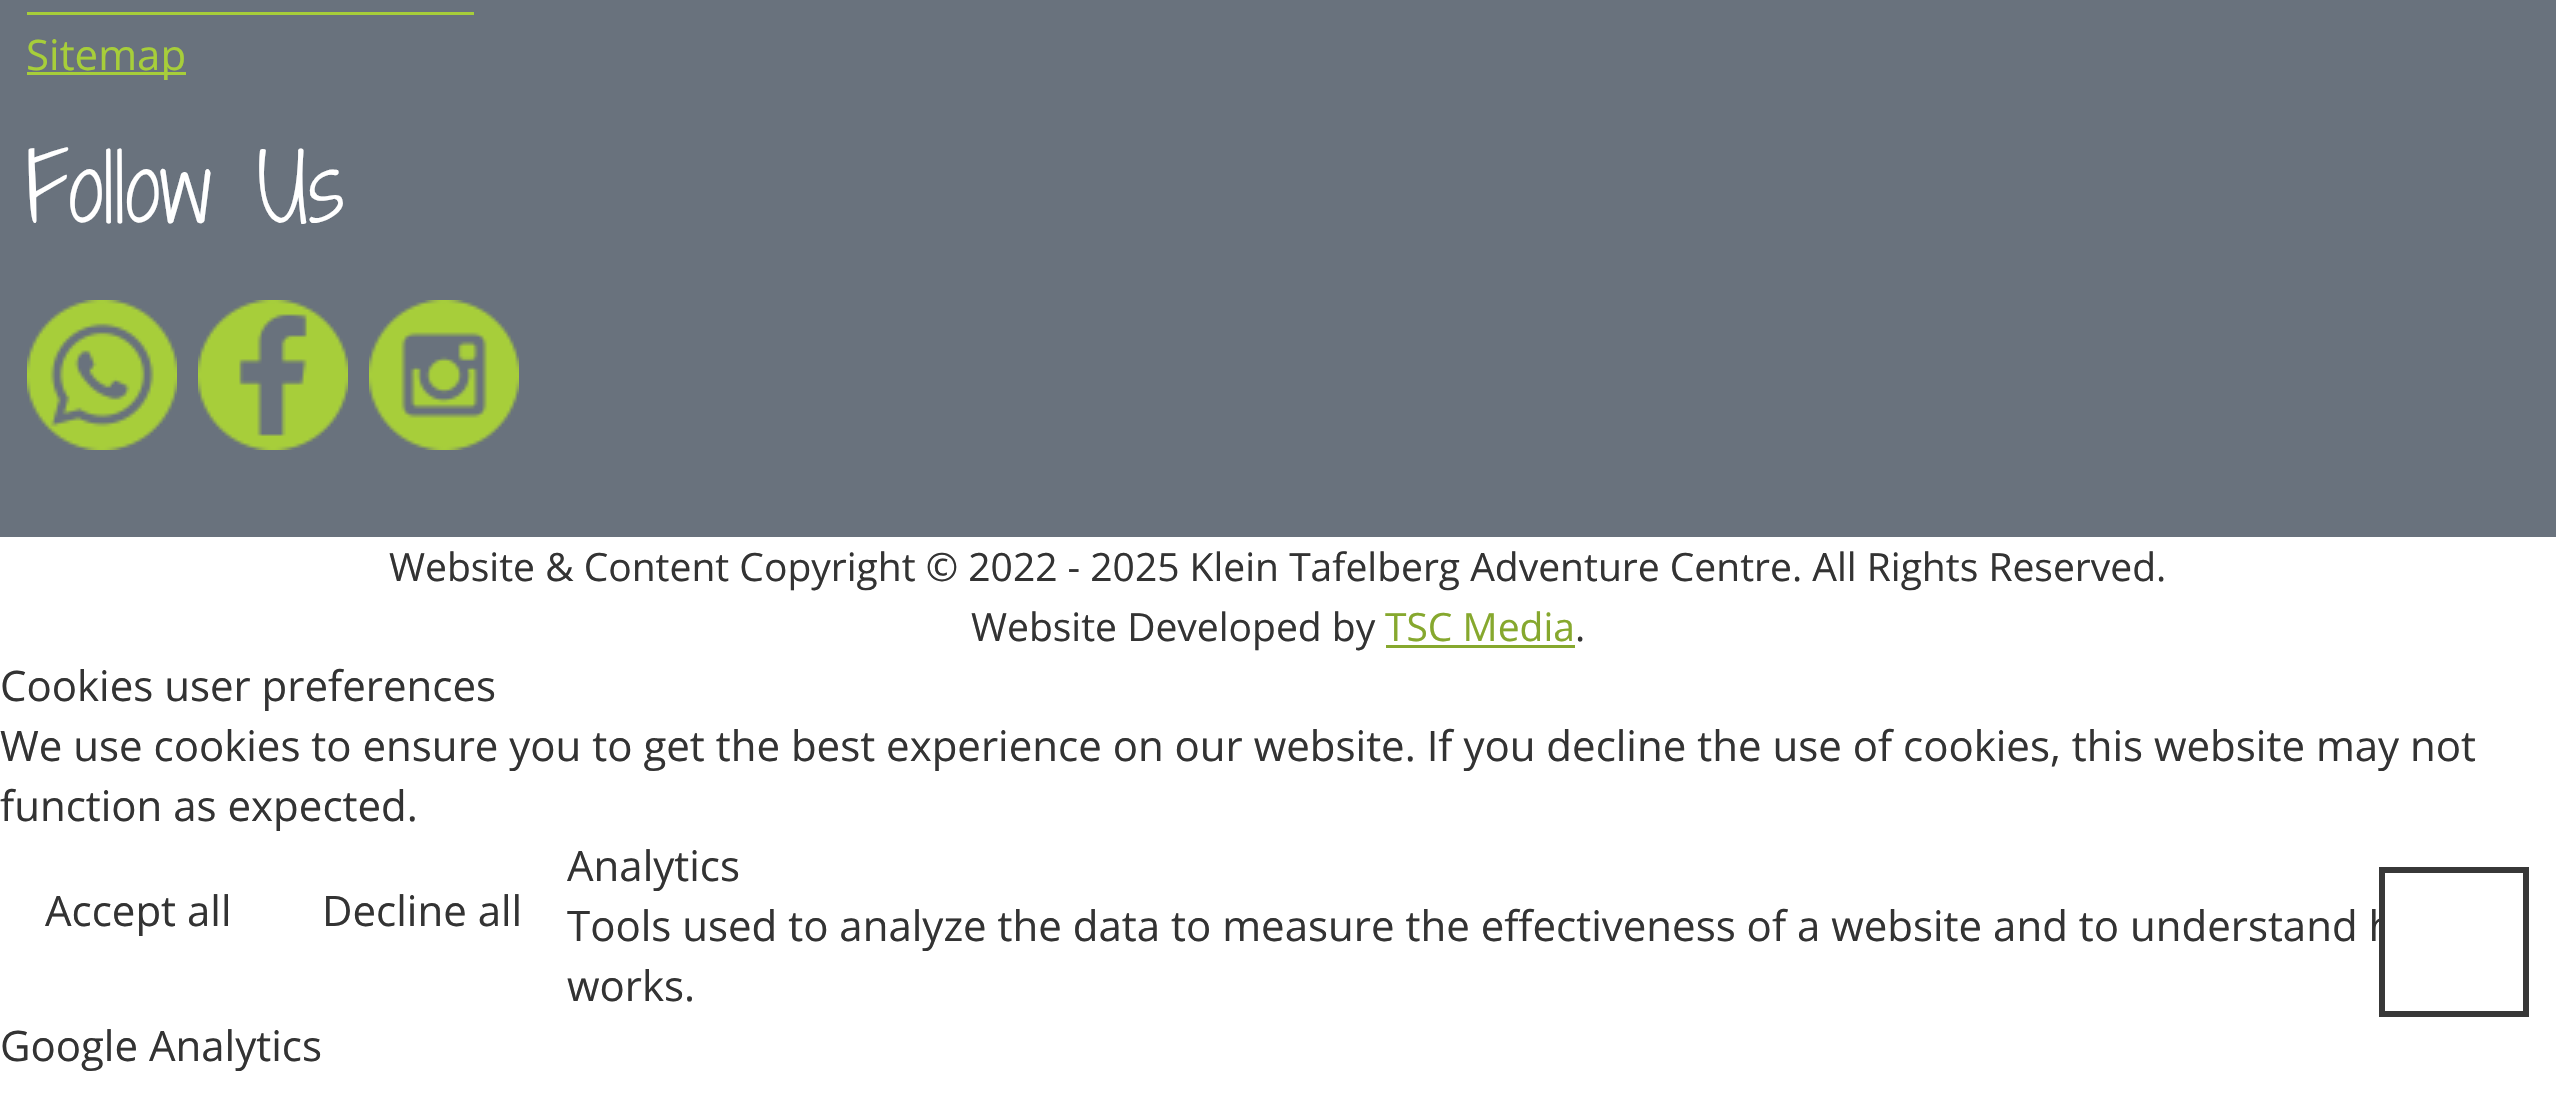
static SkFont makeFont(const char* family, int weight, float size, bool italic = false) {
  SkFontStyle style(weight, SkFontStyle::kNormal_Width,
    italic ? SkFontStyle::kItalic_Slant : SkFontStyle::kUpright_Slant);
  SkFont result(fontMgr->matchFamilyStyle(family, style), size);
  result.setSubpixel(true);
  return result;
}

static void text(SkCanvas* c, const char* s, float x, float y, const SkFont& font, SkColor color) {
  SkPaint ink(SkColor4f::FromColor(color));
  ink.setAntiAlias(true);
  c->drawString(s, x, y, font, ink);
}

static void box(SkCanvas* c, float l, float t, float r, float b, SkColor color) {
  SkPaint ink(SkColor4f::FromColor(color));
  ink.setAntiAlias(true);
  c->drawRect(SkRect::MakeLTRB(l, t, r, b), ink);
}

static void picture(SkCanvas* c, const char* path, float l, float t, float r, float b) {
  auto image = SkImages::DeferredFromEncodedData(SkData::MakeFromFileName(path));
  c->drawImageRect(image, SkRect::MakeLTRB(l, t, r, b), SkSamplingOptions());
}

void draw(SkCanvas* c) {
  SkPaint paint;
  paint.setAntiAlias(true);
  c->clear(0xffffffff);
  box(c, 0, 0, 2556, 537, 0xff69727d);
  box(c, 27, 12, 474, 15, 0xffa7ce3a);
  box(c, 27, 72, 186, 75, 0xffa7ce3a);
  SkFont face1 = makeFont("Open Sans", 400, 42);
  text(c, "Sitemap", 26, 70, face1, 0xffa7ce3a);
  SkFont face2 = makeFont("Shadows Into Light Two", 300, 90);
  text(c, "Follow Us", 26, 223, face2, 0xffffffff);
  picture(c, "img_01.png", 27, 300, 177, 450);
  picture(c, "img_02.png", 198, 300, 348, 450);
  picture(c, "img_03.png", 369, 300, 519, 450);
  SkFont face3 = makeFont("Open Sans", 400, 39);
  text(c, "Website & Content Copyright © 2022 - 2025 Klein Tafelberg Adventure Centre. All Rights Reserved.", 389, 581, face3, 0xff333333);
  text(c, "Website Developed by", 971, 641, face3, 0xff333333);
  text(c, "TSC Media", 1385, 641, face3, 0xff86a82e);
  box(c, 1386, 645, 1575, 648, 0xff86a82e);
  text(c, ".", 1575, 641, face3, 0xff333333);
  text(c, "Cookies user preferences", 0, 701, face1, 0xff333333);
  text(c, "We use cookies to ensure you to get the best experience on our website. If you decline the use of cookies, this website may not", 0, 761, face1, 0xff333333);
  text(c, "function as expected.", 0, 821, face1, 0xff333333);
  text(c, "Analytics", 567, 881, face1, 0xff333333);
  text(c, "Tools used to analyze the data to measure the effectiveness of a website and to understand h", 567, 941, face1, 0xff333333);
  text(c, "works.", 567, 1001, face1, 0xff333333);
  text(c, "Google Analytics", 0, 1061, face1, 0xff333333);
  text(c, "Accept all", 45, 926, face1, 0xff333333);
  text(c, "Decline all", 322, 926, face1, 0xff333333);
  box(c, 2385, 918, 2391, 941, 0xffffffff);
  paint.setStyle(SkPaint::kStroke_Style);
  paint.setStrokeWidth(6);
  paint.setColor(0xff383838);
  c->drawRect(SkRect::MakeLTRB(2382, 870, 2526, 1014), paint);
}
